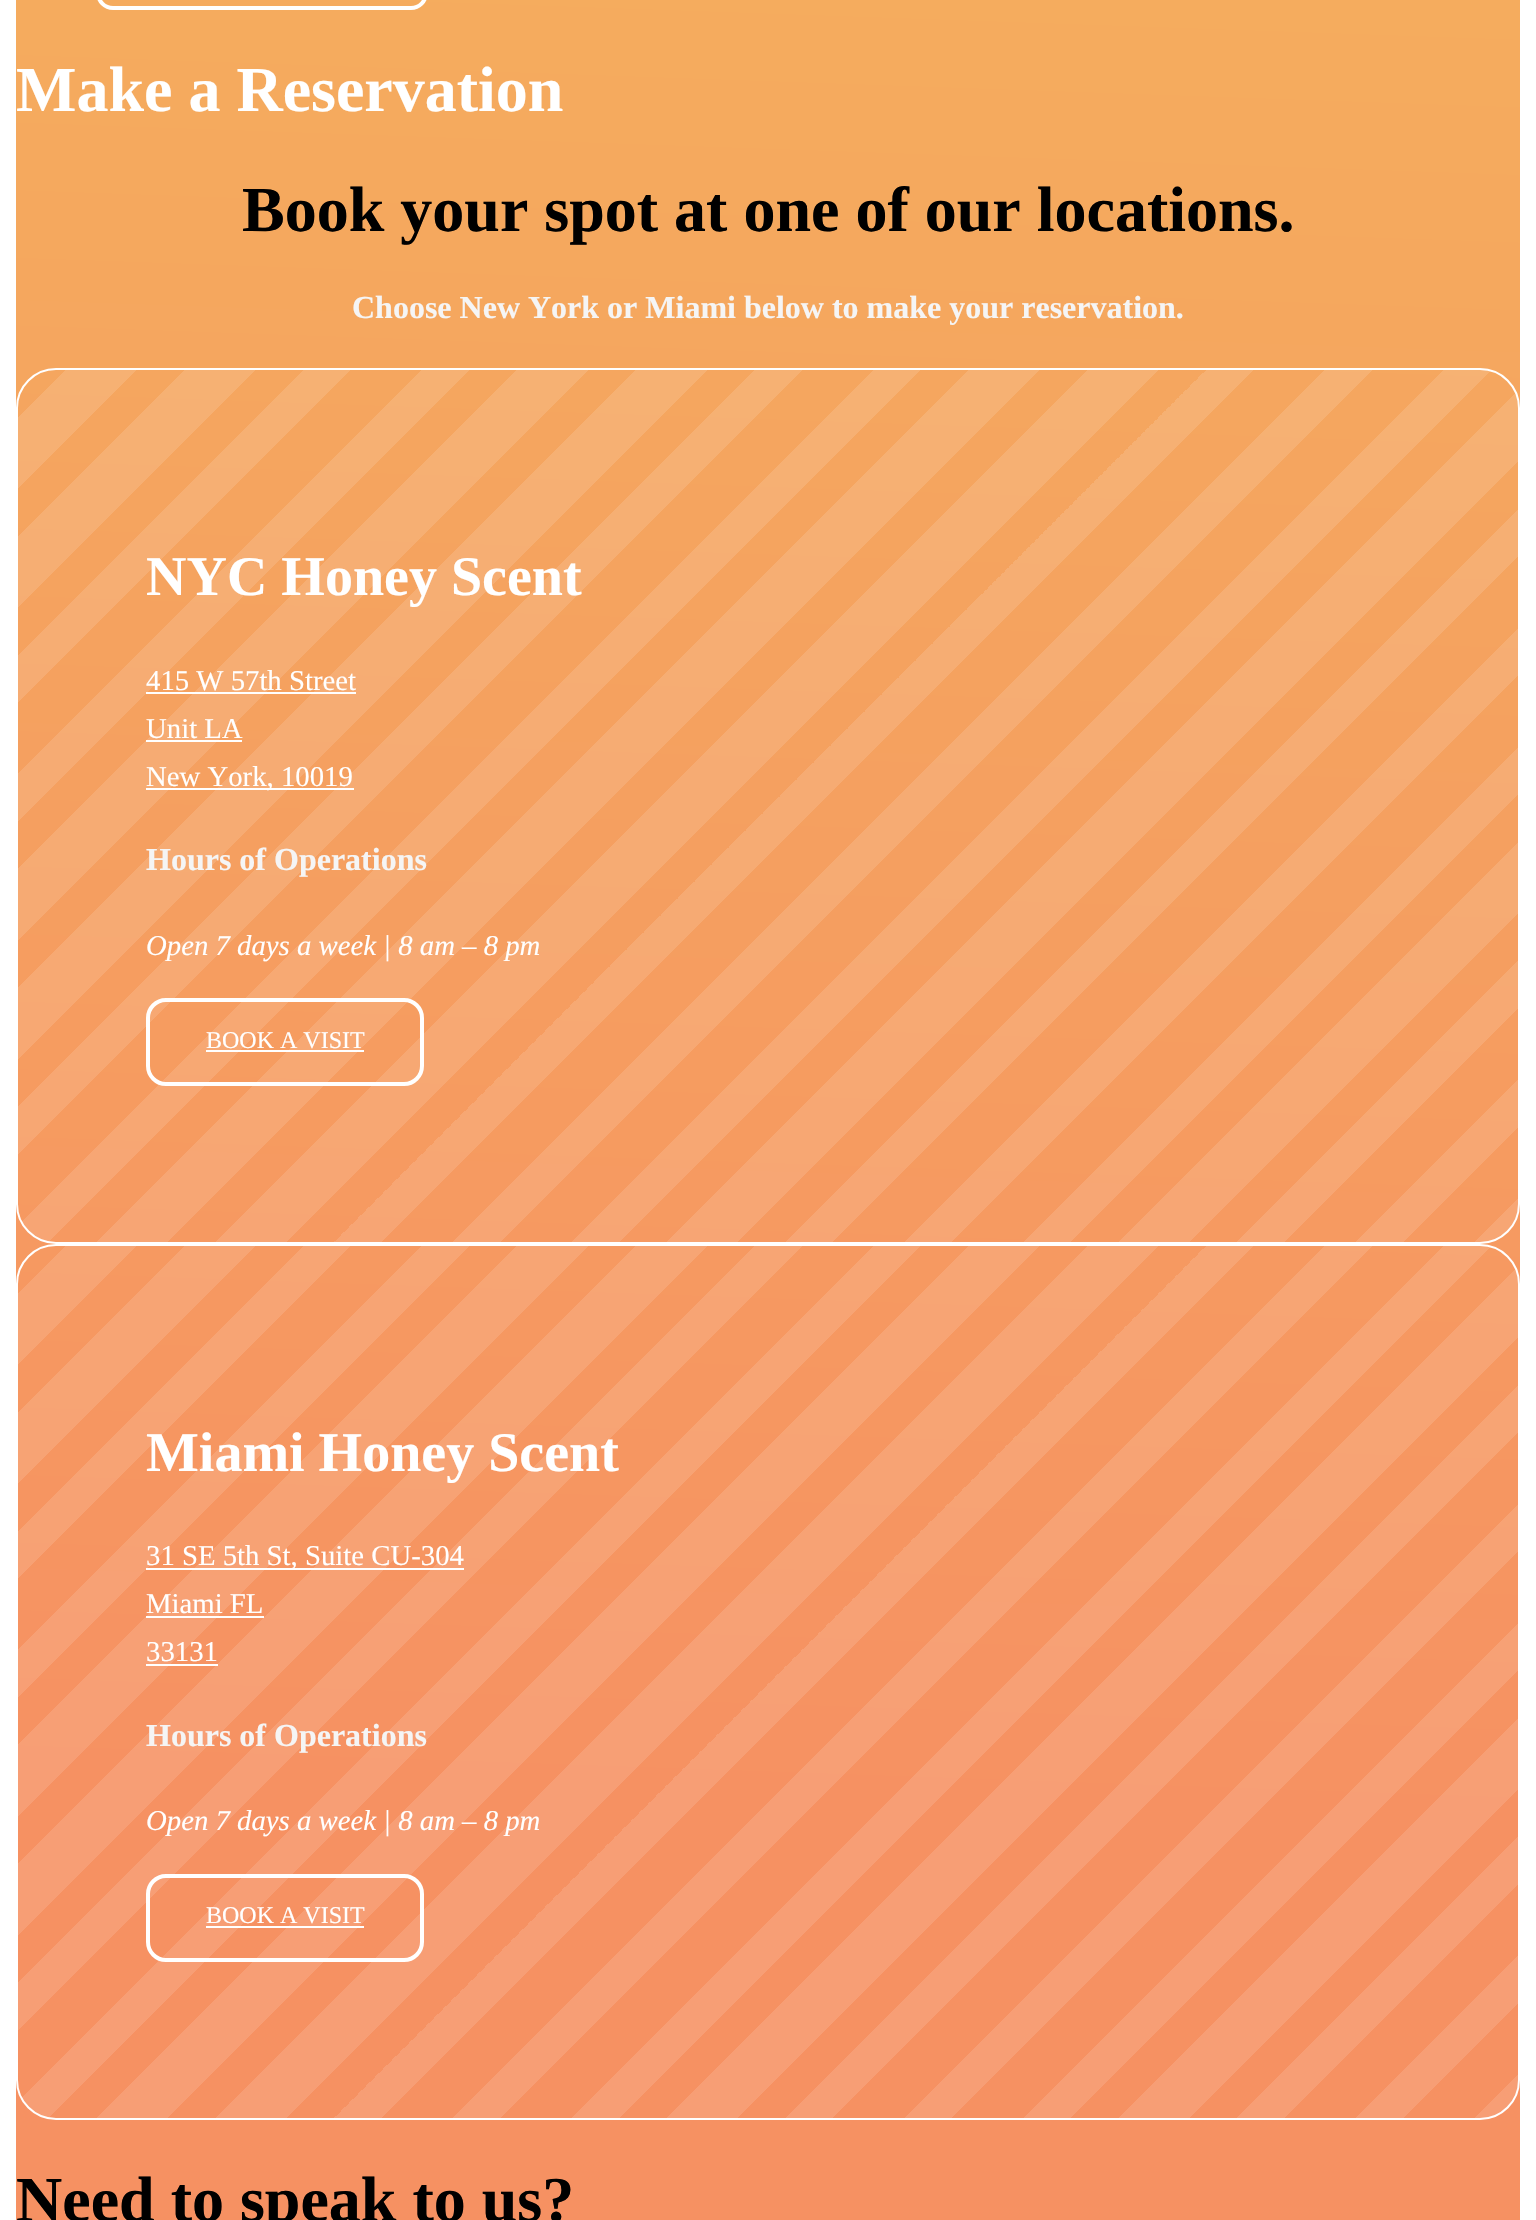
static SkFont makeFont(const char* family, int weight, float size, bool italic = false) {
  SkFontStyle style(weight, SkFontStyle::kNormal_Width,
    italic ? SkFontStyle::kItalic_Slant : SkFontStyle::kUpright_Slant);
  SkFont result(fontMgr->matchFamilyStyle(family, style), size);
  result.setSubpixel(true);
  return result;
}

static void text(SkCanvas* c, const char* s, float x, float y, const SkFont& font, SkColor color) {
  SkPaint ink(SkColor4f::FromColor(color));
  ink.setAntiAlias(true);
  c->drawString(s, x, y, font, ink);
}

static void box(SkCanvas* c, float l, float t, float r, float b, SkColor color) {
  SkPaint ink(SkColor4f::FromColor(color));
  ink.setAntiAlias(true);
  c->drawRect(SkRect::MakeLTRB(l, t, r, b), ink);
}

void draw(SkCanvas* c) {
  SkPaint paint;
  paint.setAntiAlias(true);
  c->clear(0xffffffff);
  {
    const SkColor colors[] = {0xfff69162, 0xfff4c35a};
    const float stops[] = {0.21f, 1};
    const SkPoint ends[] = {{715, 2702}, {864, -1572}};
    paint.setShader(SkGradientShader::MakeLinear(ends, colors, stops, 2, SkTileMode::kClamp));
    paint.setAlpha(255);
  }
  c->drawRect(SkRect::MakeLTRB(16, 0, 1520, 2220), paint);
  paint.setStyle(SkPaint::kStroke_Style);
  paint.setStrokeWidth(4);
  paint.setShader(nullptr);
  paint.setColor(0xffffffff);
  c->drawRoundRect(SkRect::MakeLTRB(98, -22, 426, 8), 18, 18, paint);
  SkFont face1 = makeFont("Liberation Serif", 700, 64);
  text(c, "Make a Reservation", 16, 111, face1, 0xffffffff);
  text(c, "Book your spot at one of our locations.", 242, 231, face1, 0xff000000);
  SkFont face2 = makeFont("Liberation Serif", 700, 32);
  text(c, "Choose New York or Miami below to make your reservation.", 352, 318, face2, 0xfff5f5f5);
  c->save();
  c->clipPath(SkPathBuilder().moveTo(56, 368).lineTo(1480, 368).cubicTo(1502, 368, 1520, 386, 1520, 408).lineTo(1520, 1204).cubicTo(1520, 1226, 1502, 1244, 1480, 1244).lineTo(56, 1244).cubicTo(34, 1244, 16, 1226, 16, 1204).lineTo(16, 408).cubicTo(16, 386, 34, 368, 56, 368).close().detach(), true);
  paint.setStyle(SkPaint::kFill_Style);
  {
    const SkColor colors[] = {0x00000000, 0x00ffffff, 0x1fffffff, 0x1fffffff, 0x00ffffff, 0x00ffffff, 0x1fffffff, 0x1fffffff, 0x00ffffff, 0x00ffffff, 0x1fffffff, 0x1fffffff, 0x00ffffff, 0x00ffffff, 0x1fffffff, 0x1fffffff, 0x00ffffff, 0x00ffffff, 0x1fffffff, 0x1fffffff, 0x00ffffff, 0x00ffffff, 0x1fffffff, 0x1fffffff, 0x00ffffff, 0x00ffffff, 0x1fffffff, 0x1fffffff, 0x00ffffff, 0x00ffffff, 0x1fffffff, 0x1fffffff, 0x00ffffff, 0x00ffffff, 0x1fffffff, 0x1fffffff, 0x00ffffff, 0x00ffffff, 0x1fffffff, 0x1fffffff, 0x00ffffff, 0x00ffffff, 0x1fffffff, 0x1fffffff, 0x00ffffff, 0x00ffffff, 0x1fffffff, 0x1fffffff, 0x00ffffff, 0x00ffffff, 0x1fffffff, 0x1fffffff, 0x00ffffff, 0x00ffffff, 0x1fffffff, 0x1fffffff, 0x00ffffff, 0x00ffffff, 0x1fffffff, 0x1fffffff, 0x00ffffff, 0x00ffffff, 0x1fffffff, 0x1fffffff, 0x00ffffff, 0x00ffffff, 0x1fffffff, 0x1fffffff, 0x00ffffff, 0x00ffffff, 0x1fffffff, 0x1fffffff, 0x00ffffff, 0x00ffffff, 0x1fffffff, 0x1fffffff, 0x00ffffff, 0x00ffffff, 0x1fffffff, 0x1fffffff, 0x00ffffff, 0x00ffffff, 0x1fffffff, 0x1fffffff};
    const float stops[] = {0, 0.02f, 0.02f, 0.05f, 0.05f, 0.07f, 0.07f, 0.1f, 0.1f, 0.12f, 0.12f, 0.14f, 0.14f, 0.17f, 0.17f, 0.19f, 0.19f, 0.21f, 0.21f, 0.24f, 0.24f, 0.26f, 0.26f, 0.29f, 0.29f, 0.31f, 0.31f, 0.33f, 0.33f, 0.36f, 0.36f, 0.38f, 0.38f, 0.4f, 0.4f, 0.43f, 0.43f, 0.45f, 0.45f, 0.48f, 0.48f, 0.5f, 0.5f, 0.52f, 0.52f, 0.55f, 0.55f, 0.57f, 0.57f, 0.6f, 0.6f, 0.62f, 0.62f, 0.64f, 0.64f, 0.67f, 0.67f, 0.69f, 0.69f, 0.71f, 0.71f, 0.74f, 0.74f, 0.76f, 0.76f, 0.79f, 0.79f, 0.81f, 0.81f, 0.83f, 0.83f, 0.86f, 0.86f, 0.88f, 0.88f, 0.9f, 0.9f, 0.93f, 0.93f, 0.95f, 0.95f, 0.98f, 0.98f, 1};
    const SkPoint ends[] = {{175, 213}, {1363, 1401}};
    paint.setShader(SkGradientShader::MakeLinear(ends, colors, stops, 84, SkTileMode::kClamp));
    paint.setAlpha(255);
  }
  c->drawRect(SkRect::MakeLTRB(18, 370, 1518, 1242), paint);
  c->restore();
  paint.setStyle(SkPaint::kStroke_Style);
  paint.setStrokeWidth(2);
  paint.setShader(nullptr);
  paint.setColor(0xffffffff);
  c->drawRoundRect(SkRect::MakeLTRB(17, 369, 1519, 1243), 39, 39, paint);
  SkFont face3 = makeFont("Liberation Serif", 700, 56);
  text(c, "NYC Honey Scent", 146, 595, face3, 0xffffffff);
  SkFont face4 = makeFont("Liberation Serif", 400, 28.75f);
  text(c, "415 W 57th Street", 146, 690, face4, 0xffffffff);
  box(c, 146, 692, 356, 694, 0xffffffff);
  text(c, "Unit LA", 146, 738, face4, 0xffffffff);
  box(c, 146, 740, 242, 742, 0xffffffff);
  box(c, 146, 788, 354, 790, 0xffffffff);
  text(c, "New York, 10019", 146, 786, face4, 0xffffffff);
  text(c, "Hours of Operations", 146, 870, face2, 0xfff5f5f5);
  SkFont face5 = makeFont("Liberation Serif", 400, 28.75f, true);
  text(c, "Open 7 days a week | 8 am – 8 pm", 146, 955, face5, 0xffffffff);
  paint.setStrokeWidth(4);
  c->drawRoundRect(SkRect::MakeLTRB(148, 1000, 422, 1084), 18, 18, paint);
  SkFont face6 = makeFont("Liberation Serif", 400, 24);
  text(c, "BOOK A VISIT", 206, 1048, face6, 0xffffffff);
  box(c, 206, 1050, 364, 1052, 0xffffffff);
  c->save();
  c->clipPath(SkPathBuilder().moveTo(56, 1244).lineTo(1480, 1244).cubicTo(1502, 1244, 1520, 1262, 1520, 1284).lineTo(1520, 2080).cubicTo(1520, 2102, 1502, 2120, 1480, 2120).lineTo(56, 2120).cubicTo(34, 2120, 16, 2102, 16, 2080).lineTo(16, 1284).cubicTo(16, 1262, 34, 1244, 56, 1244).close().detach(), true);
  paint.setStyle(SkPaint::kFill_Style);
  {
    const SkColor colors[] = {0x00000000, 0x00ffffff, 0x1fffffff, 0x1fffffff, 0x00ffffff, 0x00ffffff, 0x1fffffff, 0x1fffffff, 0x00ffffff, 0x00ffffff, 0x1fffffff, 0x1fffffff, 0x00ffffff, 0x00ffffff, 0x1fffffff, 0x1fffffff, 0x00ffffff, 0x00ffffff, 0x1fffffff, 0x1fffffff, 0x00ffffff, 0x00ffffff, 0x1fffffff, 0x1fffffff, 0x00ffffff, 0x00ffffff, 0x1fffffff, 0x1fffffff, 0x00ffffff, 0x00ffffff, 0x1fffffff, 0x1fffffff, 0x00ffffff, 0x00ffffff, 0x1fffffff, 0x1fffffff, 0x00ffffff, 0x00ffffff, 0x1fffffff, 0x1fffffff, 0x00ffffff, 0x00ffffff, 0x1fffffff, 0x1fffffff, 0x00ffffff, 0x00ffffff, 0x1fffffff, 0x1fffffff, 0x00ffffff, 0x00ffffff, 0x1fffffff, 0x1fffffff, 0x00ffffff, 0x00ffffff, 0x1fffffff, 0x1fffffff, 0x00ffffff, 0x00ffffff, 0x1fffffff, 0x1fffffff, 0x00ffffff, 0x00ffffff, 0x1fffffff, 0x1fffffff, 0x00ffffff, 0x00ffffff, 0x1fffffff, 0x1fffffff, 0x00ffffff, 0x00ffffff, 0x1fffffff, 0x1fffffff, 0x00ffffff, 0x00ffffff, 0x1fffffff, 0x1fffffff, 0x00ffffff, 0x00ffffff, 0x1fffffff, 0x1fffffff, 0x00ffffff, 0x00ffffff, 0x1fffffff, 0x1fffffff};
    const float stops[] = {0, 0.02f, 0.02f, 0.05f, 0.05f, 0.07f, 0.07f, 0.1f, 0.1f, 0.12f, 0.12f, 0.14f, 0.14f, 0.17f, 0.17f, 0.19f, 0.19f, 0.21f, 0.21f, 0.24f, 0.24f, 0.26f, 0.26f, 0.29f, 0.29f, 0.31f, 0.31f, 0.33f, 0.33f, 0.36f, 0.36f, 0.38f, 0.38f, 0.4f, 0.4f, 0.43f, 0.43f, 0.45f, 0.45f, 0.48f, 0.48f, 0.5f, 0.5f, 0.52f, 0.52f, 0.55f, 0.55f, 0.57f, 0.57f, 0.6f, 0.6f, 0.62f, 0.62f, 0.64f, 0.64f, 0.67f, 0.67f, 0.69f, 0.69f, 0.71f, 0.71f, 0.74f, 0.74f, 0.76f, 0.76f, 0.79f, 0.79f, 0.81f, 0.81f, 0.83f, 0.83f, 0.86f, 0.86f, 0.88f, 0.88f, 0.9f, 0.9f, 0.93f, 0.93f, 0.95f, 0.95f, 0.98f, 0.98f, 1};
    const SkPoint ends[] = {{175, 1089}, {1363, 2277}};
    paint.setShader(SkGradientShader::MakeLinear(ends, colors, stops, 84, SkTileMode::kClamp));
    paint.setAlpha(255);
  }
  c->drawRect(SkRect::MakeLTRB(18, 1246, 1518, 2118), paint);
  c->restore();
  paint.setStyle(SkPaint::kStroke_Style);
  paint.setStrokeWidth(2);
  paint.setShader(nullptr);
  paint.setColor(0xffffffff);
  c->drawRoundRect(SkRect::MakeLTRB(17, 1245, 1519, 2119), 39, 39, paint);
  text(c, "Miami Honey Scent", 146, 1471, face3, 0xffffffff);
  box(c, 146, 1568, 464, 1570, 0xffffffff);
  text(c, "31 SE 5th St, Suite CU-304", 146, 1565, face4, 0xffffffff);
  text(c, "Miami FL", 146, 1613, face4, 0xffffffff);
  box(c, 146, 1616, 264, 1618, 0xffffffff);
  text(c, "33131", 146, 1661, face4, 0xffffffff);
  box(c, 146, 1664, 218, 1666, 0xffffffff);
  text(c, "Hours of Operations", 146, 1746, face2, 0xfff5f5f5);
  text(c, "Open 7 days a week | 8 am – 8 pm", 146, 1830, face5, 0xffffffff);
  paint.setStrokeWidth(4);
  c->drawRoundRect(SkRect::MakeLTRB(148, 1876, 422, 1960), 18, 18, paint);
  text(c, "BOOK A VISIT", 206, 1923, face6, 0xffffffff);
  box(c, 206, 1926, 364, 1928, 0xffffffff);
  text(c, "Need to speak to us?", 16, 2221, face1, 0xff000000);
}
